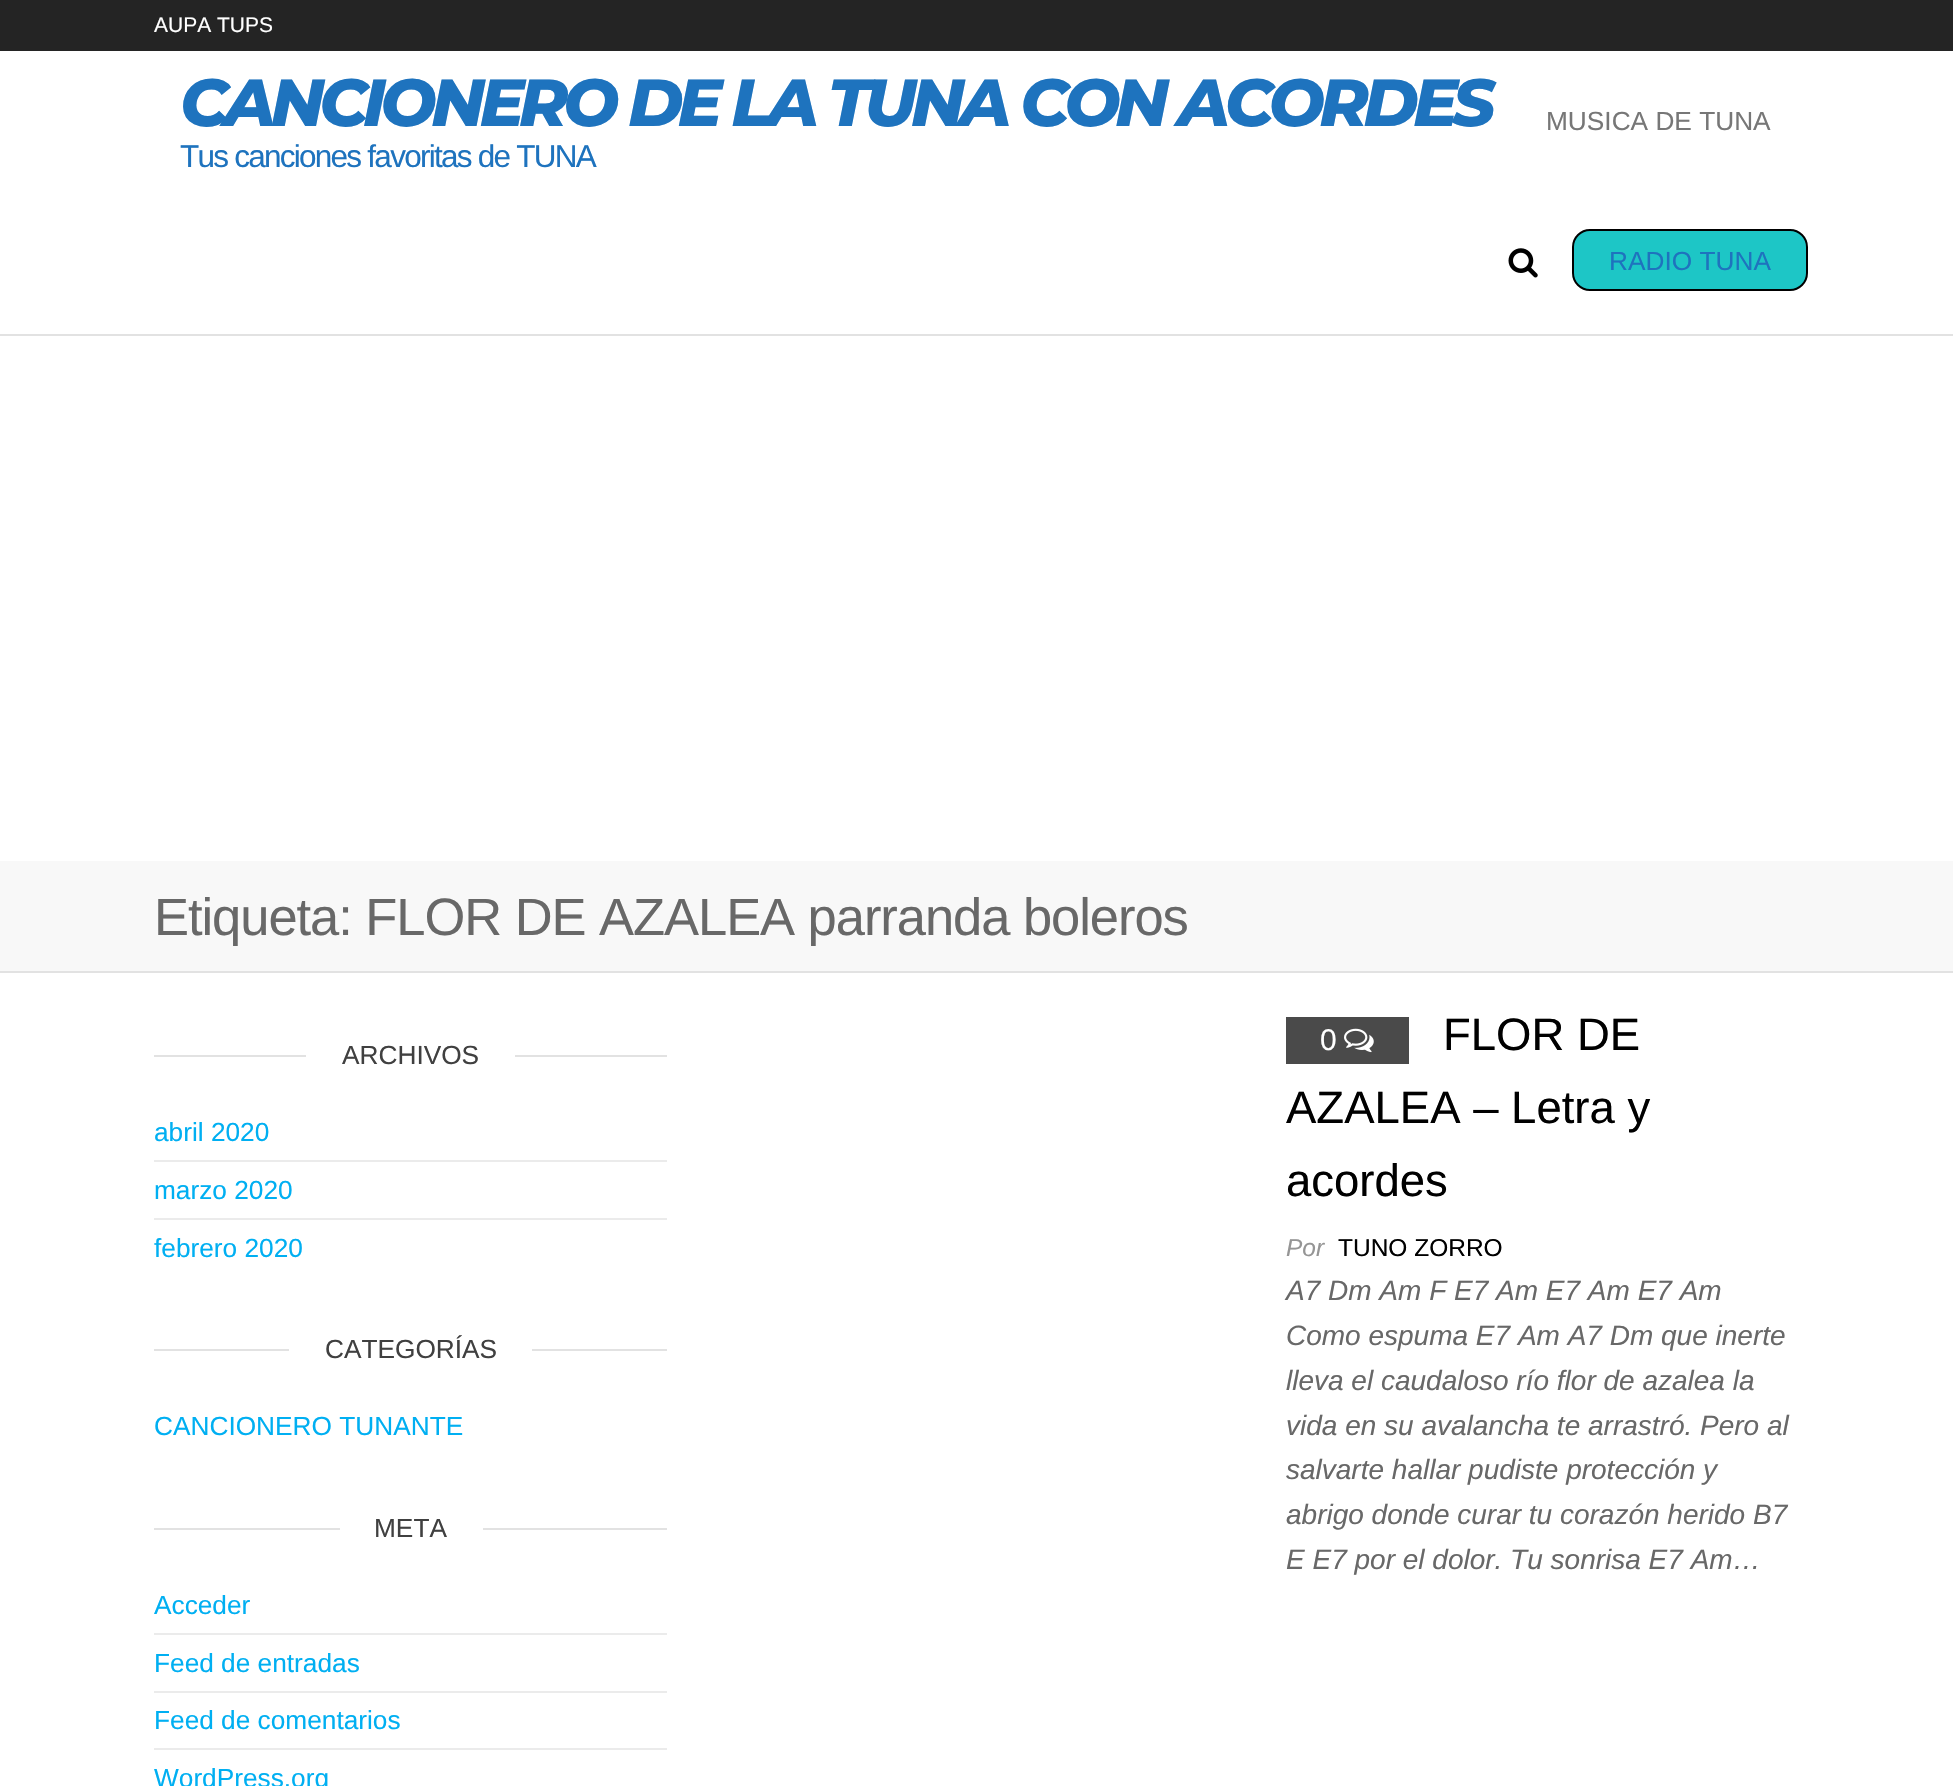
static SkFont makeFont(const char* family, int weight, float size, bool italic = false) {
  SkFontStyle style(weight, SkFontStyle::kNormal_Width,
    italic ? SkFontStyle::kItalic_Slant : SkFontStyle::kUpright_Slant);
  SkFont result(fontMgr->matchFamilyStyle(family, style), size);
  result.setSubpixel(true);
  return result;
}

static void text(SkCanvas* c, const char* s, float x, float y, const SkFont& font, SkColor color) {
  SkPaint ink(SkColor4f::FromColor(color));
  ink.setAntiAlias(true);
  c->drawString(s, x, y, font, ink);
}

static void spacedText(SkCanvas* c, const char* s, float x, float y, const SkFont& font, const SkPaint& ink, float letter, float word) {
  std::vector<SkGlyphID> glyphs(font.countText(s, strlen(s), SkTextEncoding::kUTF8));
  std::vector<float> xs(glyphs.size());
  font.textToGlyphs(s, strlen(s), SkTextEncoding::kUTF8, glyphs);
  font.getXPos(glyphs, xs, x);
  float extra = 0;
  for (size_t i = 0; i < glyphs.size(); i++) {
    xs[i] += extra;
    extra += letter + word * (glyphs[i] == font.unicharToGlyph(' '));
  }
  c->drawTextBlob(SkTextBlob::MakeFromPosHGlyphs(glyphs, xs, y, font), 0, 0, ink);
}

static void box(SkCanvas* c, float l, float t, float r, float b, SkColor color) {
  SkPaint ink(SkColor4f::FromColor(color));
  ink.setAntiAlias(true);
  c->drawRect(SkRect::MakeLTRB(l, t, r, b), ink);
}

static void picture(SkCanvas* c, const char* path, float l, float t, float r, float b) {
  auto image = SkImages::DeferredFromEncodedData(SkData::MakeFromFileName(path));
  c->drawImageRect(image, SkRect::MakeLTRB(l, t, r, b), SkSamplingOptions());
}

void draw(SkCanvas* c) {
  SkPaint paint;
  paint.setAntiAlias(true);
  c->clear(0xffffffff);
  box(c, 0, 0, 1953, 51, 0xff242424);
  SkFont face1 = makeFont("Liberation Sans", 400, 21);
  text(c, "AUPA TUPS", 154, 32, face1, 0xffffffff);
  box(c, 0, 334, 1953, 336, 0xffe2e2e2);
  SkFont face2 = makeFont("Montserrat", 800, 66.5f, true);
  paint.setColor(0xff1e73be);
  spacedText(c, "CANCIONERO DE LA TUNA CON ACORDES", 180, 126, face2, paint, -5.25f, 0);
  SkFont face3 = makeFont("Liberation Sans", 400, 31.5f);
  spacedText(c, "Tus canciones favoritas de TUNA", 180, 167, face3, paint, -1.75f, 0);
  SkFont face4 = makeFont("Liberation Sans", 400, 26.25f);
  text(c, "MUSICA DE TUNA", 1546, 130, face4, 0xff777777);
  picture(c, "img_01.png", 1508, 248, 1538, 278);
  paint.setColor(0xff1dc6c6);
  c->drawRoundRect(SkRect::MakeLTRB(1573, 230, 1807, 290), 17, 17, paint);
  paint.setStyle(SkPaint::kStroke_Style);
  paint.setStrokeWidth(2);
  paint.setColor(0xff000000);
  c->drawRoundRect(SkRect::MakeLTRB(1573, 230, 1807, 290), 17, 17, paint);
  text(c, "RADIO TUNA", 1609, 270, face4, 0xff1e73be);
  box(c, 0, 861, 1953, 971, 0xfff8f8f8);
  box(c, 0, 971, 1953, 973, 0xffe2e2e2);
  SkFont face5 = makeFont("Liberation Sans", 400, 52.5f);
  paint.setStyle(SkPaint::kFill_Style);
  paint.setColor(0xff686868);
  spacedText(c, "Etiqueta: FLOR DE AZALEA parranda boleros", 154, 935, face5, paint, -1.05f, 0);
  box(c, 154, 1055, 667, 1057, 0xffe2e2e2);
  box(c, 306, 1055, 515, 1057, 0xffffffff);
  text(c, "ARCHIVOS", 342, 1064, face4, 0xff404040);
  box(c, 154, 1160, 667, 1162, 0xffebebeb);
  text(c, "abril 2020", 154, 1141, face4, 0xff00aff2);
  box(c, 154, 1218, 667, 1220, 0xffebebeb);
  text(c, "marzo 2020", 154, 1199, face4, 0xff00aff2);
  text(c, "febrero 2020", 154, 1257, face4, 0xff00aff2);
  box(c, 154, 1349, 667, 1351, 0xffe2e2e2);
  box(c, 289, 1349, 532, 1351, 0xffffffff);
  text(c, "CATEGORÍAS", 325, 1358, face4, 0xff404040);
  text(c, "CANCIONERO TUNANTE", 154, 1435, face4, 0xff00aff2);
  box(c, 154, 1528, 667, 1530, 0xffe2e2e2);
  box(c, 340, 1528, 483, 1530, 0xffffffff);
  text(c, "META", 374, 1537, face4, 0xff404040);
  box(c, 154, 1633, 667, 1635, 0xffebebeb);
  text(c, "Acceder", 154, 1614, face4, 0xff00aff2);
  box(c, 154, 1691, 667, 1693, 0xffebebeb);
  text(c, "Feed de entradas", 154, 1672, face4, 0xff00aff2);
  box(c, 154, 1748, 667, 1750, 0xffebebeb);
  text(c, "Feed de comentarios", 154, 1729, face4, 0xff00aff2);
  text(c, "WordPress.org", 154, 1787, face4, 0xff00aff2);
  SkFont face6 = makeFont("Liberation Sans", 400, 45.5f);
  text(c, "FLOR DE", 1443, 1050, face6, 0xff000000);
  text(c, "AZALEA – Letra y", 1286, 1123, face6, 0xff000000);
  text(c, "acordes", 1286, 1196, face6, 0xff000000);
  box(c, 1286, 1017, 1409, 1064, 0xff4a4a4a);
  SkFont face7 = makeFont("Liberation Sans", 400, 30);
  text(c, "0", 1320, 1050, face7, 0xffffffff);
  picture(c, "img_02.png", 1344, 1028, 1374, 1053);
  SkFont face8 = makeFont("Liberation Sans", 400, 24.5f, true);
  text(c, "Por", 1286, 1256, face8, 0xff959595);
  SkFont face9 = makeFont("Liberation Sans", 400, 24.5f);
  text(c, "TUNO ZORRO", 1338, 1256, face9, 0xff000000);
  SkFont face10 = makeFont("Liberation Sans", 400, 28, true);
  text(c, "A7 Dm Am F E7 Am E7 Am E7 Am", 1286, 1300, face10, 0xff686868);
  text(c, "Como espuma E7 Am A7 Dm que inerte", 1286, 1345, face10, 0xff686868);
  text(c, "lleva el caudaloso río flor de azalea la", 1286, 1390, face10, 0xff686868);
  text(c, "vida en su avalancha te arrastró. Pero al", 1286, 1435, face10, 0xff686868);
  text(c, "salvarte hallar pudiste protección y", 1286, 1479, face10, 0xff686868);
  text(c, "abrigo donde curar tu corazón herido B7", 1286, 1524, face10, 0xff686868);
  text(c, "E E7 por el dolor. Tu sonrisa E7 Am…", 1286, 1569, face10, 0xff686868);
}
